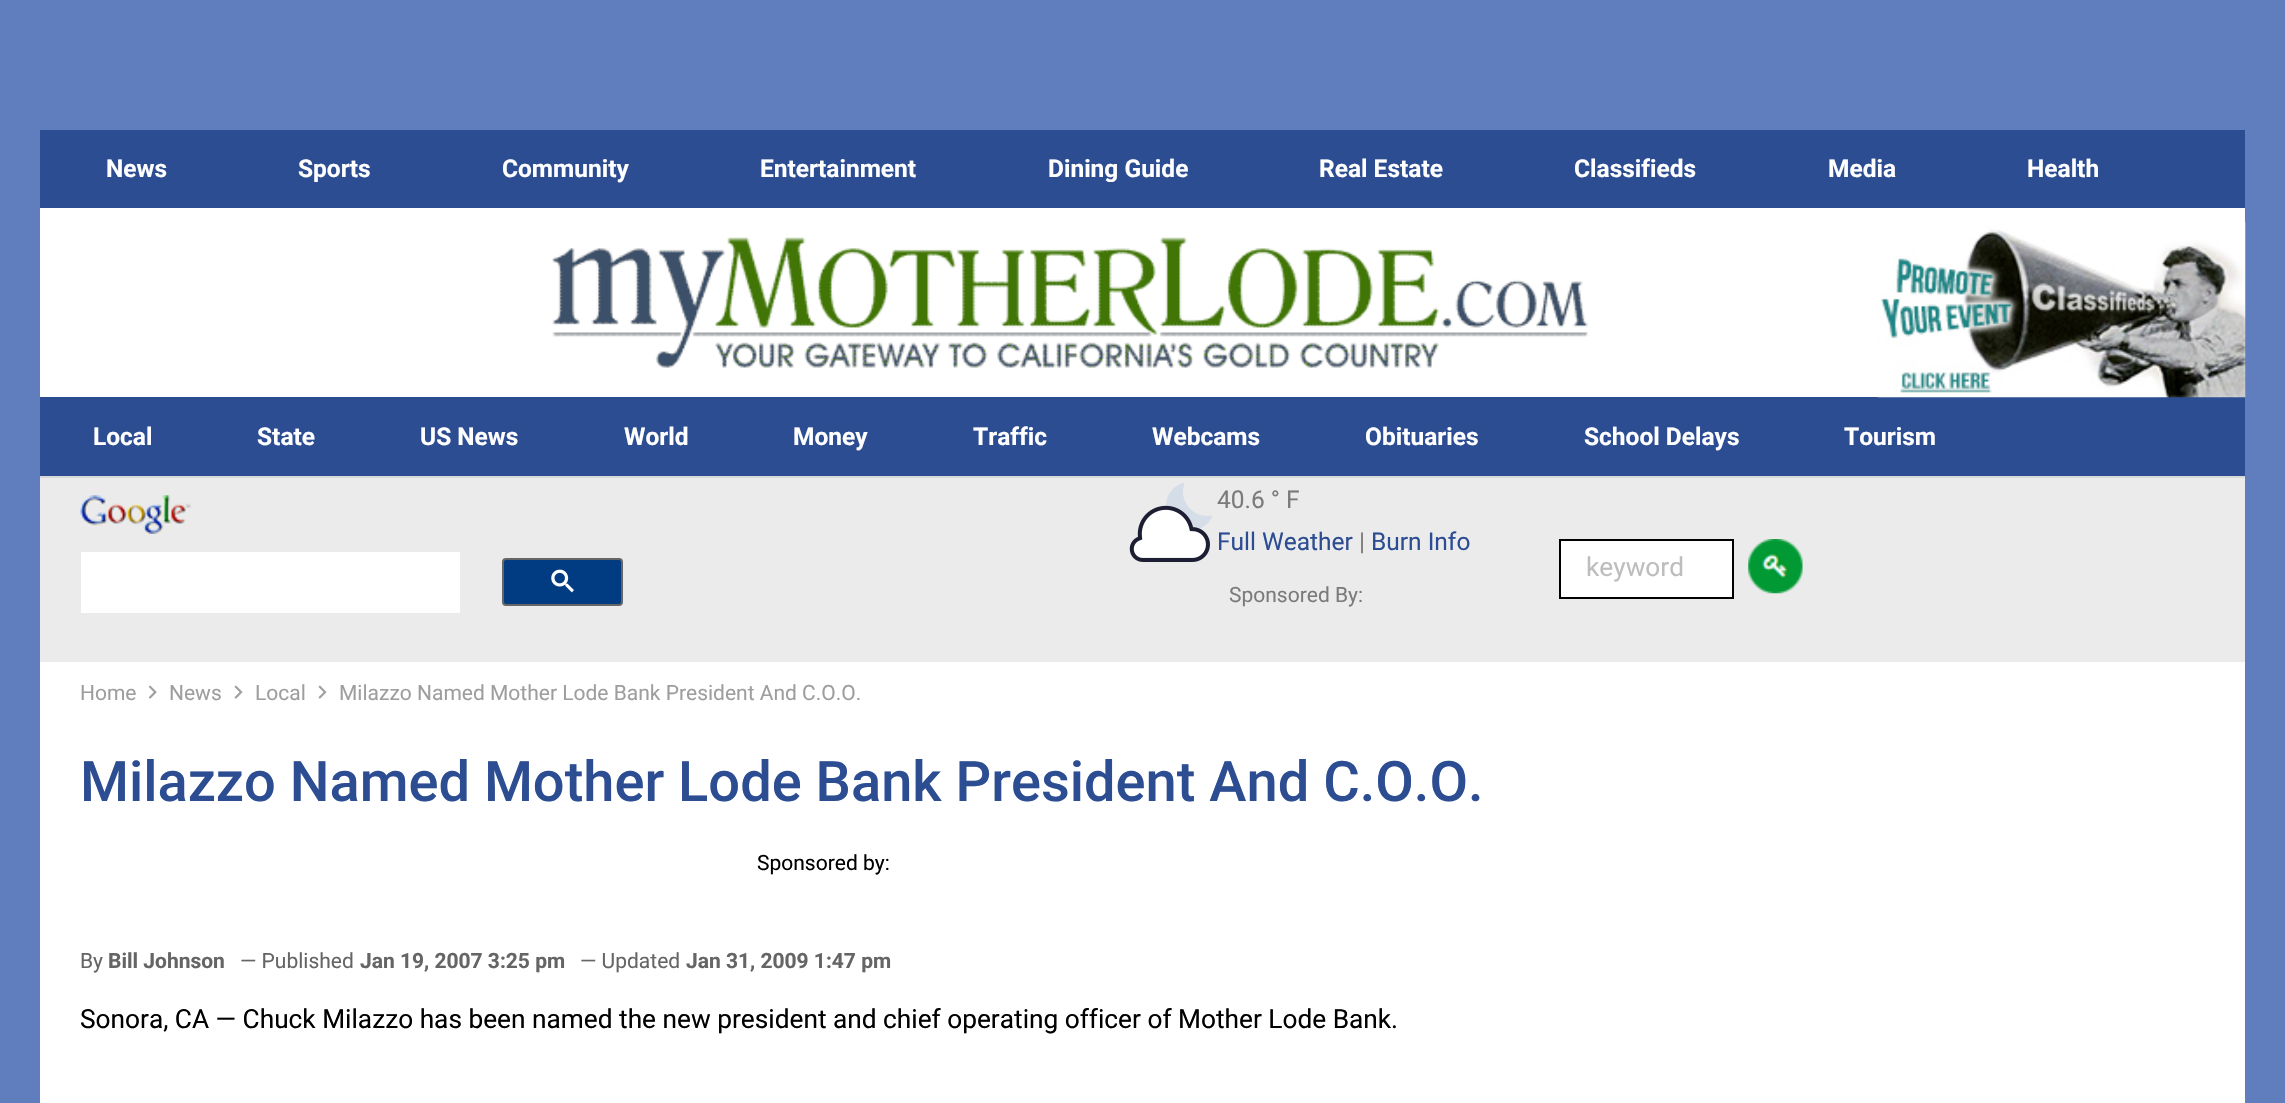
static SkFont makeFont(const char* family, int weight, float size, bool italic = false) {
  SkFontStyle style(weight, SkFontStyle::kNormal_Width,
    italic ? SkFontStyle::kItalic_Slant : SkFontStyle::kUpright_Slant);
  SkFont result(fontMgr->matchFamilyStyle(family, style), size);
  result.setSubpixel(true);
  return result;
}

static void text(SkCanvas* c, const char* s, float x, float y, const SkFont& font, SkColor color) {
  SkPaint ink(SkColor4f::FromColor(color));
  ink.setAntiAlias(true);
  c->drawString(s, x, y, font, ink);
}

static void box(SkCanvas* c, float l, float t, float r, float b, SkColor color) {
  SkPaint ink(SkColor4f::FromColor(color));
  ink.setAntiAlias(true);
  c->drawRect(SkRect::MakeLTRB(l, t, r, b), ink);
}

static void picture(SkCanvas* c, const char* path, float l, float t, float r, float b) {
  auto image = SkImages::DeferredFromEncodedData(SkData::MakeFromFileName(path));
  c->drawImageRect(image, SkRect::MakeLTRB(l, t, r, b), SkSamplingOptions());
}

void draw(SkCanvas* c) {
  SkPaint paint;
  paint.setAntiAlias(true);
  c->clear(0xff607ebe);
  box(c, 40, 208, 2245, 1103, 0xffffffff);
  box(c, 40, 130, 2245, 208, 0xff2c4d92);
  SkFont face1 = makeFont("Roboto", 700, 24.5f);
  text(c, "News", 106, 177, face1, 0xffffffff);
  text(c, "Sports", 298, 177, face1, 0xffffffff);
  text(c, "Community", 502, 177, face1, 0xffffffff);
  text(c, "Entertainment", 760, 177, face1, 0xffffffff);
  text(c, "Dining Guide", 1048, 177, face1, 0xffffffff);
  text(c, "Real Estate", 1319, 177, face1, 0xffffffff);
  text(c, "Classifieds", 1574, 177, face1, 0xffffffff);
  text(c, "Media", 1828, 177, face1, 0xffffffff);
  text(c, "Health", 2027, 177, face1, 0xffffffff);
  picture(c, "img_01.png", 552, 237, 1588, 368);
  box(c, 40, 397, 2245, 476, 0xff2c4d92);
  picture(c, "img_02.png", 1877, 222, 2246, 398);
  paint.setColor(0xffd8d8d8);
  c->drawPath(SkPathBuilder().moveTo(40, 399).lineTo(40, 478).lineTo(2245, 478).lineTo(2245, 476).lineTo(40, 476).close().detach(), paint);
  text(c, "Local", 93, 445, face1, 0xffffffff);
  text(c, "State", 257, 445, face1, 0xffffffff);
  text(c, "US News", 420, 445, face1, 0xffffffff);
  text(c, "World", 624, 445, face1, 0xffffffff);
  text(c, "Money", 793, 445, face1, 0xffffffff);
  text(c, "Traffic", 973, 445, face1, 0xffffffff);
  text(c, "Webcams", 1152, 445, face1, 0xffffffff);
  text(c, "Obituaries", 1365, 445, face1, 0xffffffff);
  text(c, "School Delays", 1584, 445, face1, 0xffffffff);
  text(c, "Tourism", 1844, 445, face1, 0xffffffff);
  box(c, 40, 478, 2245, 662, 0xffebebeb);
  picture(c, "img_03.png", 80, 495, 191, 534);
  box(c, 81, 552, 460, 613, 0xffffffff);
  paint.setColor(0xff013b82);
  c->drawRoundRect(SkRect::MakeLTRB(503, 559, 622, 605), 3, 3, paint);
  paint.setStyle(SkPaint::kStroke_Style);
  paint.setStrokeWidth(2);
  paint.setColor(0xff666666);
  c->drawRoundRect(SkRect::MakeLTRB(503, 559, 622, 605), 3, 3, paint);
  picture(c, "img_04.png", 551, 569, 574, 593);
  picture(c, "img_05.png", 1129, 482, 1213, 562);
  SkFont face2 = makeFont("Roboto", 400, 24.5f);
  text(c, "40.6 ° F", 1217, 508, face2, 0xff7b7b7b);
  text(c, "Full Weather", 1217, 550, face2, 0xff2c4d92);
  text(c, "|", 1359, 550, face2, 0xff7b7b7b);
  text(c, "Burn Info", 1371, 550, face2, 0xff2c4d92);
  SkFont face3 = makeFont("Roboto", 400, 21);
  text(c, "Sponsored By:", 1229, 602, face3, 0xff7b7b7b);
  paint.setStyle(SkPaint::kFill_Style);
  paint.setColor(0xffffffff);
  c->drawRect(SkRect::MakeLTRB(1560, 540, 1733, 598), paint);
  paint.setStyle(SkPaint::kStroke_Style);
  paint.setColor(0xff000000);
  c->drawRect(SkRect::MakeLTRB(1560, 540, 1733, 598), paint);
  SkFont face4 = makeFont("Roboto", 400, 26.25f);
  text(c, "keyword", 1586, 576, face4, 0xffbdbdbd);
  picture(c, "img_06.png", 1748, 539, 1803, 594);
  text(c, "Home", 80, 700, face3, 0xff9e9e9e);
  picture(c, "img_07.png", 148, 685, 157, 699);
  text(c, "News", 169, 700, face3, 0xff9e9e9e);
  picture(c, "img_08.png", 234, 685, 243, 699);
  text(c, "Local", 255, 700, face3, 0xff9e9e9e);
  picture(c, "img_08.png", 318, 685, 327, 699);
  text(c, "Milazzo Named Mother Lode Bank President And C.O.O.", 339, 700, face3, 0xff9e9e9e);
  SkFont face5 = makeFont("Roboto", 500, 56);
  text(c, "Milazzo Named Mother Lode Bank President And C.O.O.", 80, 801, face5, 0xff2c4d92);
  text(c, "Sponsored by:", 757, 870, face3, 0xff000000);
  text(c, "By", 80, 968, face3, 0xff656565);
  SkFont face6 = makeFont("Roboto", 700, 21);
  text(c, "Bill Johnson", 108, 968, face6, 0xff656565);
  text(c, "— Published", 240, 968, face3, 0xff656565);
  text(c, "Jan 19, 2007 3:25 pm", 360, 968, face6, 0xff656565);
  text(c, "— Updated", 580, 968, face3, 0xff656565);
  text(c, "Jan 31, 2009 1:47 pm", 686, 968, face6, 0xff656565);
  text(c, "Sonora, CA — Chuck Milazzo has been named the new president and chief operating officer of Mother Lode Bank.", 80, 1028, face4, 0xff000000);
}
